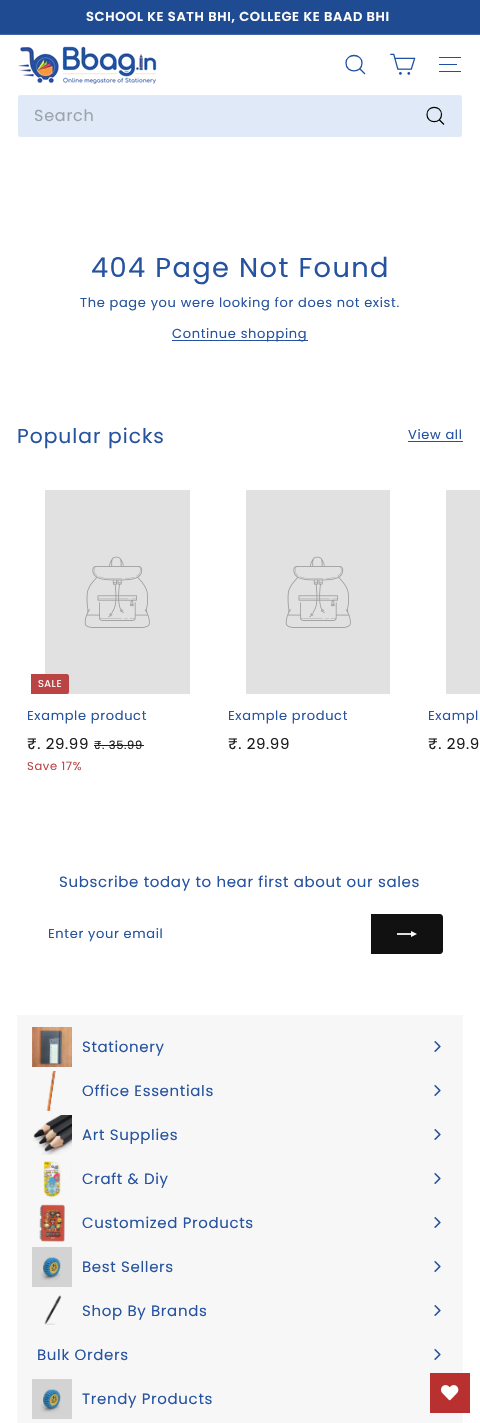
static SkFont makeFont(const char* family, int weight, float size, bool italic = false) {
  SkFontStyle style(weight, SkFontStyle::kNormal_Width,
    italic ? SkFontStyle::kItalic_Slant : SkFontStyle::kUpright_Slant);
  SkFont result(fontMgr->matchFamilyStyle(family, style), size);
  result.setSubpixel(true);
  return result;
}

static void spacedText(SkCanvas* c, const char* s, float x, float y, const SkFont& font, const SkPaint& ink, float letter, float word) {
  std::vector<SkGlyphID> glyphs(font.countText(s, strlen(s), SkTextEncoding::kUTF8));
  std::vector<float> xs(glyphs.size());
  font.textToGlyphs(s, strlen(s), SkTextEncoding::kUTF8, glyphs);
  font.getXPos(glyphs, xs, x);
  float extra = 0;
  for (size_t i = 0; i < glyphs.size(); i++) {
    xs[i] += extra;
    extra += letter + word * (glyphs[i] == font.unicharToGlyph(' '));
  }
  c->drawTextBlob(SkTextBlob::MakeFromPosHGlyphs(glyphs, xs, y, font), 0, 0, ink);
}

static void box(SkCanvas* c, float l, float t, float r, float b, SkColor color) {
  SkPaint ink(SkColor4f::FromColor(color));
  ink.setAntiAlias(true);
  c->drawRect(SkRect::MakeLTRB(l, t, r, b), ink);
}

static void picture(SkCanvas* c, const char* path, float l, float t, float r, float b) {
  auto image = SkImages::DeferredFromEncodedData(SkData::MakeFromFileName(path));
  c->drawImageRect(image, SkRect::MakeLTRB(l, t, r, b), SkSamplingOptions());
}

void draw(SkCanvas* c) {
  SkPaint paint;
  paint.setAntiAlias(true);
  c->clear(0xffffffff);
  box(c, 0, 0, 480, 34, 0xff1f4b93);
  SkFont face1 = makeFont("Poppins", 600, 13);
  paint.setColor(0xffffffff);
  spacedText(c, "SCHOOL KE SATH BHI, COLLEGE KE BAAD BHI", 86, 21, face1, paint, 0.65f, 0);
  box(c, 0, 34, 480, 35, 0xff4166a3);
  picture(c, "img_01.png", 18, 46, 157, 84);
  paint.setStyle(SkPaint::kStroke_Style);
  paint.setStrokeWidth(1.3f);
  paint.setStrokeJoin(SkPaint::kRound_Join);
  paint.setColor(0xff1f50a4);
  c->drawPath(SkPathBuilder().moveTo(362, 63).cubicTo(362, 73.5f, 346, 73.5f, 346, 63).cubicTo(346, 53, 362, 53, 362, 63).moveTo(365, 74).lineTo(359.5f, 68.5f).detach(), paint);
  picture(c, "img_02.png", 390, 53, 416, 75);
  box(c, 439, 57, 461, 58, 0xff1f50a4);
  box(c, 439, 64, 457, 65, 0xff1f50a4);
  box(c, 439, 71, 461, 72, 0xff1f50a4);
  paint.setStyle(SkPaint::kFill_Style);
  paint.setColor(0xffe0e9f7);
  c->drawRoundRect(SkRect::MakeLTRB(17.5f, 94.5f, 462.5f, 137.5f), 3.5f, 3.5f, paint);
  paint.setStyle(SkPaint::kStroke_Style);
  paint.setStrokeWidth(1);
  paint.setStrokeJoin(SkPaint::kMiter_Join);
  paint.setColor(0xffffffff);
  c->drawRoundRect(SkRect::MakeLTRB(17.5f, 94.5f, 462.5f, 137.5f), 3.5f, 3.5f, paint);
  SkFont face2 = makeFont("Poppins", 400, 16);
  paint.setStyle(SkPaint::kFill_Style);
  paint.setColor(0xff9ca3af);
  spacedText(c, "Search", 34, 121, face2, paint, 0.75f, 0);
  paint.setStyle(SkPaint::kStroke_Style);
  paint.setStrokeWidth(1.2f);
  paint.setStrokeJoin(SkPaint::kRound_Join);
  paint.setColor(0xff000000);
  c->drawPath(SkPathBuilder().moveTo(441.5f, 114.5f).cubicTo(441.5f, 124, 427, 124, 427, 114.5f).cubicTo(427, 105, 441.5f, 105, 441.5f, 114.5f).moveTo(444, 124.5f).lineTo(439.5f, 120).detach(), paint);
  SkFont face3 = makeFont("Poppins", 400, 27.25f);
  paint.setStyle(SkPaint::kFill_Style);
  paint.setColor(0xff2653a0);
  spacedText(c, "404 Page Not Found", 91, 277, face3, paint, 1.4f, 0);
  SkFont face4 = makeFont("Poppins", 400, 13);
  spacedText(c, "The page you were looking for does not exist.", 80, 307, face4, paint, 0.65f, 0);
  box(c, 172, 340, 308, 341, 0xff2653a0);
  spacedText(c, "Continue shopping", 172, 338, face4, paint, 0.65f, 0);
  SkFont face5 = makeFont("Poppins", 400, 20.25f);
  spacedText(c, "Popular picks", 17, 443, face5, paint, 1, 0);
  spacedText(c, "View all", 408, 439, face4, paint, 0.65f, 0);
  box(c, 408, 441, 463, 442, 0xff2653a0);
  box(c, 45, 490, 190, 694, 0xffe1e1e1);
  picture(c, "img_03.png", 84, 556, 150, 628);
  paint.setColor(0xffba4444);
  c->drawPath(SkPathBuilder().moveTo(31, 674).lineTo(67, 674).cubicTo(68, 674, 69, 675, 69, 676).lineTo(69, 692).cubicTo(69, 693, 68, 694, 67, 694).lineTo(31, 694).close().detach(), paint);
  SkFont face6 = makeFont("Poppins", 400, 10);
  paint.setColor(0xffffffff);
  spacedText(c, "SALE", 38, 687, face6, paint, 0.5f, 0);
  paint.setColor(0xff2653a0);
  spacedText(c, "Example product", 27, 720, face4, paint, 0.65f, 0);
  SkFont face7 = makeFont("Poppins", 400, 15);
  paint.setColor(0xff1c1d1d);
  spacedText(c, "₹. 29.99", 27, 749, face7, paint, 0.65f, 0);
  SkFont face8 = makeFont("Poppins", 400, 11.5f);
  spacedText(c, "₹. 35.99", 94, 749, face8, paint, 0.65f, 0);
  box(c, 94, 745, 144, 746, 0xff1c1d1d);
  paint.setColor(0xffba4444);
  spacedText(c, "Save 17%", 27, 770, face8, paint, 0.65f, 0);
  box(c, 246, 490, 390, 694, 0xffe1e1e1);
  picture(c, "img_03.png", 285, 556, 351, 628);
  paint.setColor(0xff2653a0);
  spacedText(c, "Example product", 228, 720, face4, paint, 0.65f, 0);
  paint.setColor(0xff1c1d1d);
  spacedText(c, "₹. 29.99", 228, 749, face7, paint, 0.65f, 0);
  box(c, 446, 490, 480, 694, 0xffe1e1e1);
  paint.setColor(0xff2653a0);
  spacedText(c, "Exampl", 428, 720, face4, paint, 0.65f, 0);
  paint.setColor(0xff1c1d1d);
  spacedText(c, "₹. 29.9", 428, 749, face7, paint, 0.65f, 0);
  paint.setColor(0xff2653a0);
  spacedText(c, "Subscribe today to hear first about our sales", 59, 887, face7, paint, 0.65f, 0);
  spacedText(c, "Enter your email", 48, 938, face4, paint, 0.65f, 0);
  paint.setColor(0xff111111);
  c->drawPath(SkPathBuilder().moveTo(371, 914).lineTo(440, 914).cubicTo(441.5f, 914, 443, 915.5f, 443, 917).lineTo(443, 951).cubicTo(443, 952.5f, 441.5f, 954, 440, 954).lineTo(371, 954).close().detach(), paint);
  picture(c, "img_04.png", 397, 931, 417, 937);
  picture(c, "img_05.png", 32, 1027, 72, 1067);
  picture(c, "img_06.png", 434, 1041, 441, 1052);
  picture(c, "img_07.png", 46, 1071, 56, 1111);
  picture(c, "img_06.png", 434, 1085, 441, 1096);
  picture(c, "img_08.png", 33, 1115, 72, 1155);
  picture(c, "img_06.png", 434, 1129, 441, 1140);
  picture(c, "img_09.png", 43, 1159, 72, 1198);
  picture(c, "img_06.png", 434, 1173, 441, 1184);
  picture(c, "img_10.png", 39, 1204, 65, 1242);
  picture(c, "img_06.png", 434, 1217, 441, 1228);
  picture(c, "img_11.png", 32, 1247, 72, 1287);
  picture(c, "img_06.png", 434, 1261, 441, 1272);
  picture(c, "img_12.png", 44, 1295, 62, 1325);
  picture(c, "img_06.png", 434, 1305, 441, 1316);
  picture(c, "img_06.png", 434, 1349, 441, 1360);
  picture(c, "img_11.png", 32, 1379, 72, 1419);
  box(c, 17, 1015, 463, 1423, 0x08000000);
  paint.setColor(0xff2653a0);
  spacedText(c, "Stationery", 82, 1052, face7, paint, 0.65f, 0);
  spacedText(c, "Office Essentials", 82, 1096, face7, paint, 0.65f, 0);
  spacedText(c, "Art Supplies", 82, 1140, face7, paint, 0.65f, 0);
  spacedText(c, "Craft & Diy", 82, 1184, face7, paint, 0.65f, 0);
  spacedText(c, "Customized Products", 82, 1228, face7, paint, 0.65f, 0);
  spacedText(c, "Best Sellers", 82, 1272, face7, paint, 0.65f, 0);
  spacedText(c, "Shop By Brands", 82, 1316, face7, paint, 0.65f, 0);
  spacedText(c, "Bulk Orders", 37, 1360, face7, paint, 0.65f, 0);
  spacedText(c, "Trendy Products", 82, 1404, face7, paint, 0.65f, 0);
  box(c, 430, 1373, 470, 1413, 0xffb93030);
  picture(c, "img_13.png", 441, 1385, 459, 1401);
}
